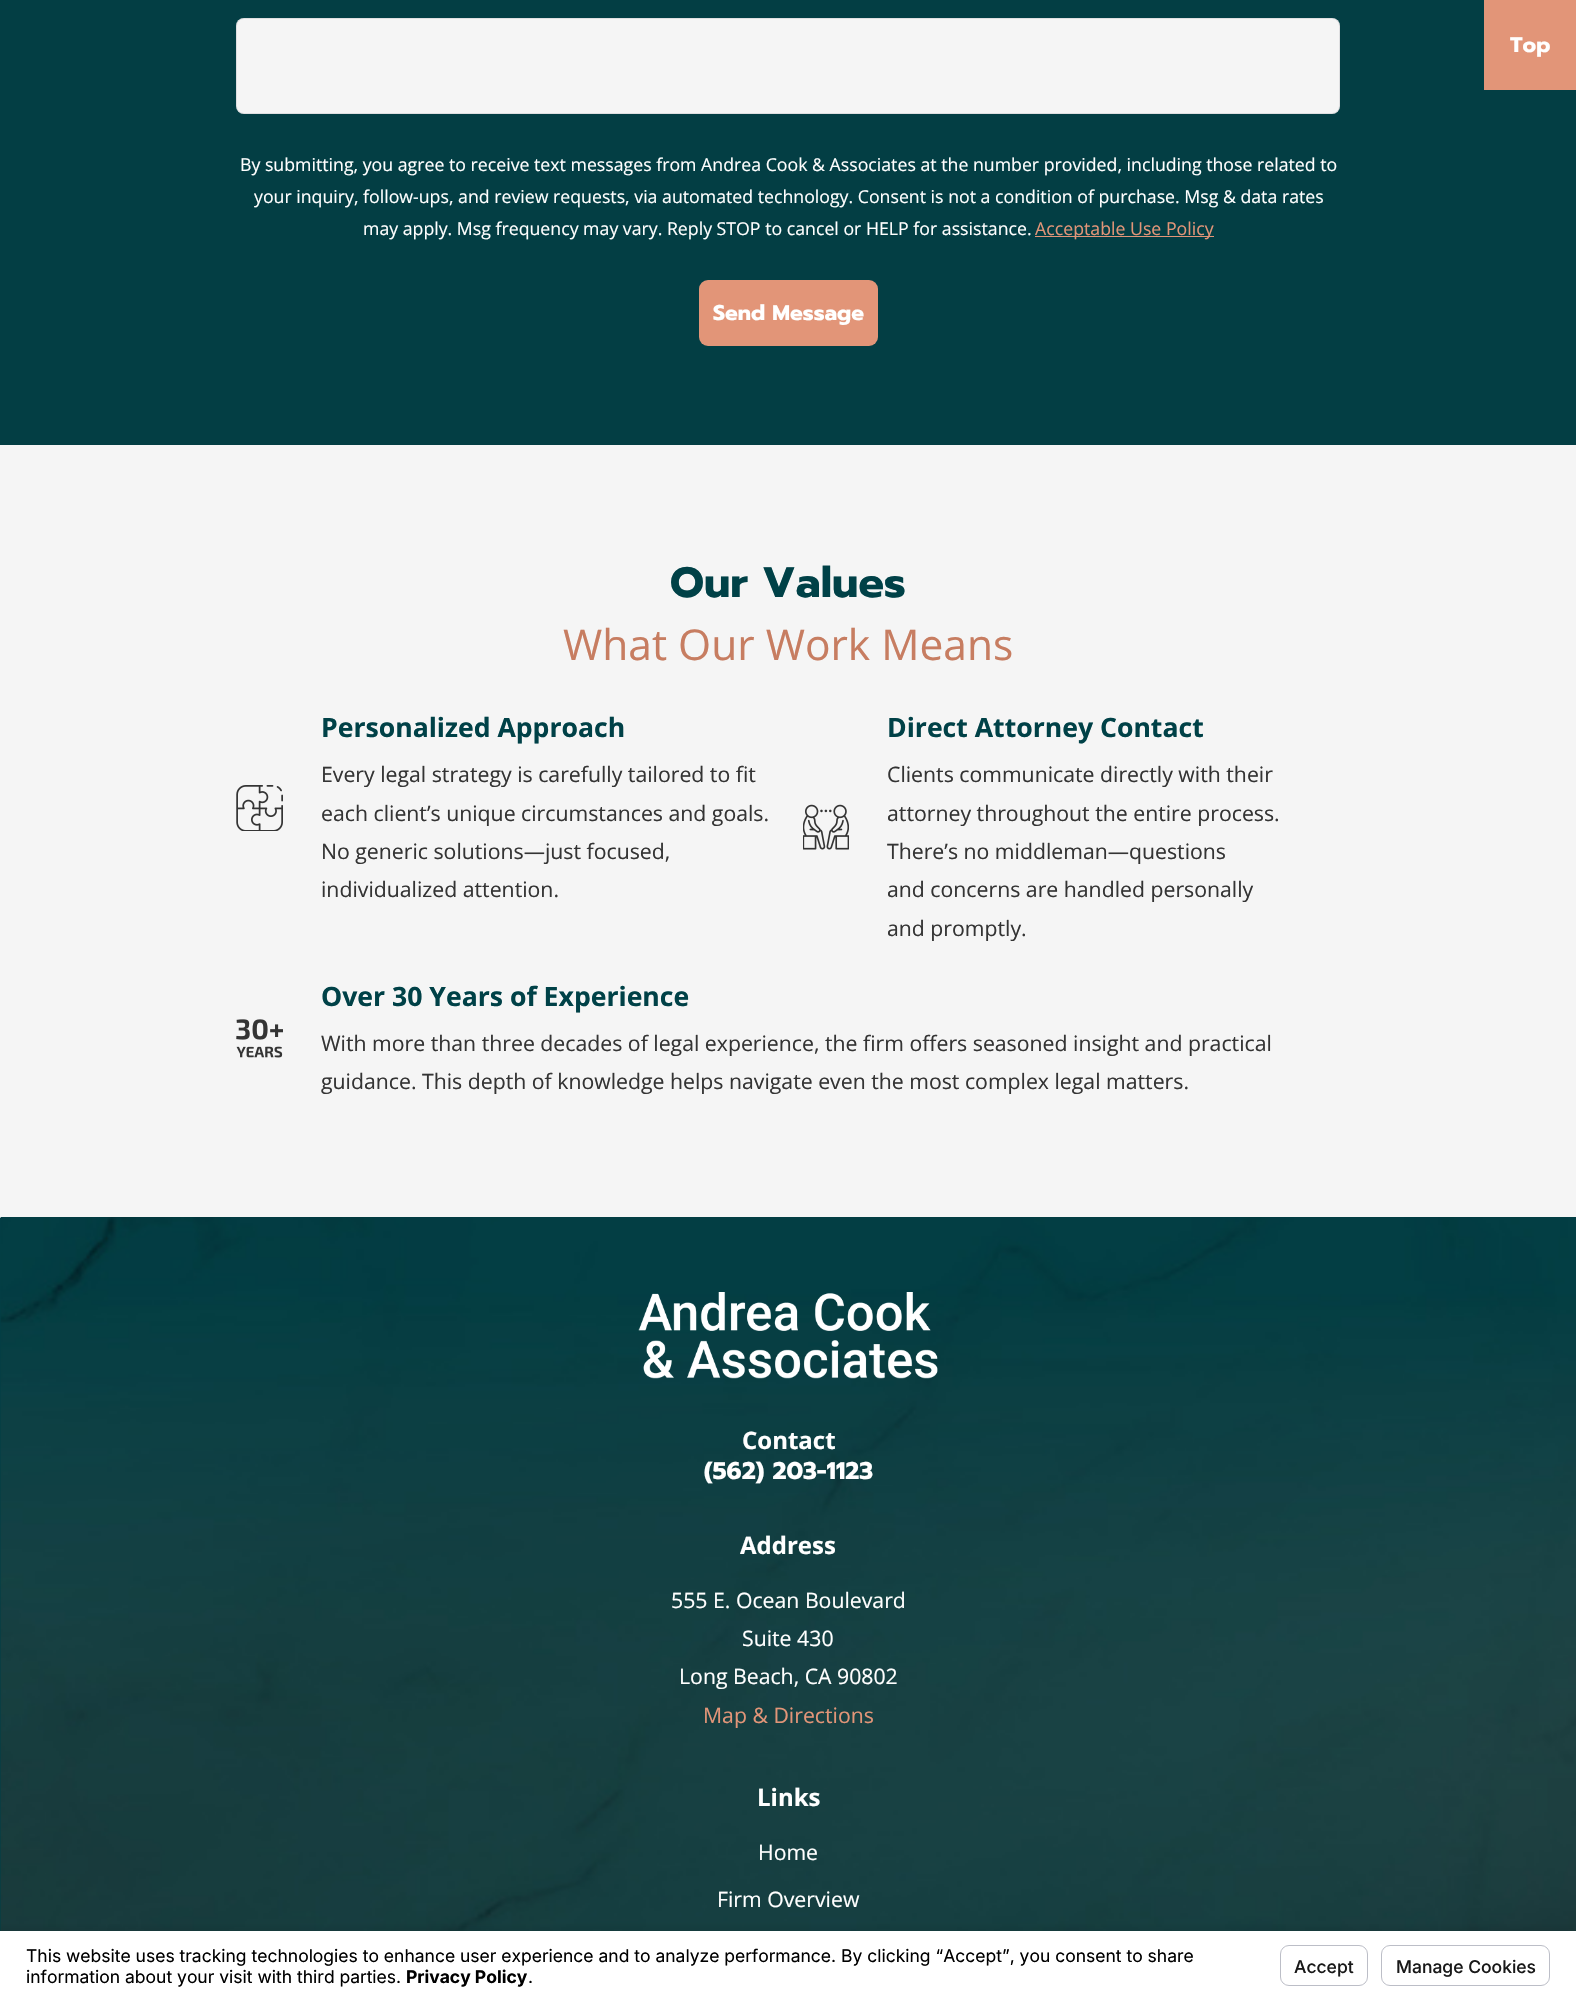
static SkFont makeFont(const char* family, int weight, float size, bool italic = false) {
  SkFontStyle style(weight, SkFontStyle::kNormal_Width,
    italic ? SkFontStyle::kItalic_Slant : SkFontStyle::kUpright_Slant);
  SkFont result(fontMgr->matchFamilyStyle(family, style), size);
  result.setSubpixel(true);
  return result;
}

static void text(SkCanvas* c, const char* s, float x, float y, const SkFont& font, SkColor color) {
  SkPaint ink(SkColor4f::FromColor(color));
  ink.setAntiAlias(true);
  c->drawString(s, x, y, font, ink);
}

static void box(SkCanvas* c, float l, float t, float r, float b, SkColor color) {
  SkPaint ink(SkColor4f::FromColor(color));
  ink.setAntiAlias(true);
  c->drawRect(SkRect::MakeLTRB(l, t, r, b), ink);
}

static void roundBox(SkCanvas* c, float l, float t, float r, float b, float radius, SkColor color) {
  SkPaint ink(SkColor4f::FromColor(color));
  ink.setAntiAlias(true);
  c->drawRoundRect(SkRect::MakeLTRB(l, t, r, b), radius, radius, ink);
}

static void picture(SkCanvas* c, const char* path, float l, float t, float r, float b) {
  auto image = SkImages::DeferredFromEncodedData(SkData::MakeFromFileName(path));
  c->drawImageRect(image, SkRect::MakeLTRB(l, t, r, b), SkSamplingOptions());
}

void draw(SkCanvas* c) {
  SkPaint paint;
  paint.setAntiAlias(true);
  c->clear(0xfff5f5f5);
  box(c, 0, 0, 1576, 445, 0xff033e44);
  box(c, 1484, 0, 1576, 90, 0xffe29578);
  SkFont face1 = makeFont("Prompt", 700, 21.25f);
  text(c, "Top", 1510, 52, face1, 0xffffffff);
  roundBox(c, 236, 18, 1340, 114, 8, 0xfff5f5f5);
  paint.setStyle(SkPaint::kStroke_Style);
  paint.setStrokeWidth(1);
  paint.setColor(0x3386898f);
  c->drawRoundRect(SkRect::MakeLTRB(236.5f, 18.5f, 1339.5f, 113.5f), 7.5f, 7.5f, paint);
  SkFont face2 = makeFont("Open Sans", 400, 17.72f);
  text(c, "By submitting, you agree to receive text messages from Andrea Cook & Associates at the number provided, including those related to", 240, 171, face2, 0xffffffff);
  text(c, "your inquiry, follow-ups, and review requests, via automated technology. Consent is not a condition of purchase. Msg & data rates", 254, 203, face2, 0xffffffff);
  text(c, "may apply. Msg frequency may vary. Reply STOP to cancel or HELP for assistance.", 363, 235, face2, 0xffffffff);
  box(c, 1035, 236, 1214, 237, 0xffe29578);
  text(c, "Acceptable Use Policy", 1035, 235, face2, 0xffe29578);
  roundBox(c, 699, 280, 878, 346, 9, 0xffe29578);
  text(c, "Send Message", 713, 320, face1, 0xffffffff);
  SkFont face3 = makeFont("Prompt", 700, 42.5f);
  text(c, "Our Values", 670, 597, face3, 0xff004147);
  SkFont face4 = makeFont("Open Sans", 400, 42.5f);
  text(c, "What Our Work Means", 563, 660, face4, 0xffc77d61);
  picture(c, "img_01.png", 236, 785, 283, 831);
  SkFont face5 = makeFont("Open Sans", 700, 26.6f);
  text(c, "Personalized Approach", 321, 737, face5, 0xff004147);
  SkFont face6 = makeFont("Open Sans", 400, 21.25f);
  text(c, "Every legal strategy is carefully tailored to fit", 321, 782, face6, 0xff343434);
  text(c, "each client’s unique circumstances and goals.", 321, 821, face6, 0xff343434);
  text(c, "No generic solutions—just focused,", 321, 859, face6, 0xff343434);
  text(c, "individualized attention.", 321, 897, face6, 0xff343434);
  picture(c, "img_02.png", 803, 804, 849, 850);
  text(c, "Direct Attorney Contact", 887, 737, face5, 0xff004147);
  text(c, "Clients communicate directly with their", 887, 782, face6, 0xff343434);
  text(c, "attorney throughout the entire process.", 887, 821, face6, 0xff343434);
  text(c, "There’s no middleman—questions", 887, 859, face6, 0xff343434);
  text(c, "and concerns are handled personally", 887, 897, face6, 0xff343434);
  text(c, "and promptly.", 887, 936, face6, 0xff343434);
  picture(c, "img_03.png", 236, 1019, 283, 1058);
  text(c, "Over 30 Years of Experience", 321, 1006, face5, 0xff004147);
  text(c, "With more than three decades of legal experience, the firm offers seasoned insight and practical", 321, 1051, face6, 0xff343434);
  text(c, "guidance. This depth of knowledge helps navigate even the most complex legal matters.", 321, 1089, face6, 0xff343434);
  box(c, 0, 1218, 1, 1931, 0xff033e44);
  picture(c, "img_04.png", 0, 1217, 1576, 1931);
  picture(c, "img_05.png", 638, 1292, 938, 1379);
  SkFont face7 = makeFont("Open Sans", 700, 24);
  text(c, "Contact", 742, 1449, face7, 0xffffffff);
  SkFont face8 = makeFont("Prompt", 700, 24);
  text(c, "(562) 203-1123", 704, 1479, face8, 0xffffffff);
  text(c, "Address", 740, 1554, face7, 0xffffffff);
  text(c, "555 E. Ocean Boulevard", 671, 1608, face6, 0xffffffff);
  text(c, "Suite 430", 742, 1646, face6, 0xffffffff);
  text(c, "Long Beach, CA 90802", 679, 1684, face6, 0xffffffff);
  text(c, "Map & Directions", 703, 1723, face6, 0xffe29578);
  text(c, "Links", 757, 1806, face7, 0xffffffff);
  text(c, "Home", 758, 1860, face6, 0xffffffff);
  text(c, "Firm Overview", 717, 1907, face6, 0xffffffff);
  paint.setStyle(SkPaint::kFill_Style);
  paint.setColor(0x0d000000);
  paint.setMaskFilter(SkMaskFilter::MakeBlur(kNormal_SkBlurStyle, 2));
  c->drawRect(SkRect::MakeLTRB(0, 1926, 1576, 1995), paint);
  paint.setMaskFilter(nullptr);
  box(c, 0, 1931, 1576, 2000, 0xffffffff);
  SkFont face9 = makeFont("Inter", 400, 17.5f);
  text(c, "This website uses tracking technologies to enhance user experience and to analyze performance. By clicking “Accept”, you consent to share", 26, 1962, face9, 0xff000000);
  text(c, "information about your visit with third parties.", 26, 1983, face9, 0xff000000);
  SkFont face10 = makeFont("Inter", 700, 17.5f);
  text(c, "Privacy Policy", 406, 1983, face10, 0xff000000);
  text(c, ".", 528, 1983, face9, 0xff000000);
  paint.setStyle(SkPaint::kStroke_Style);
  paint.setColor(0xffbcbec7);
  c->drawRoundRect(SkRect::MakeLTRB(1280.5f, 1945.5f, 1367.5f, 1985.5f), 8.5f, 8.5f, paint);
  SkFont face11 = makeFont("Inter", 500, 17.5f);
  text(c, "Accept", 1294, 1973, face11, 0xff191919);
  c->drawRoundRect(SkRect::MakeLTRB(1381.5f, 1945.5f, 1549.5f, 1985.5f), 8.5f, 8.5f, paint);
  text(c, "Manage Cookies", 1396, 1973, face11, 0xff191919);
}
